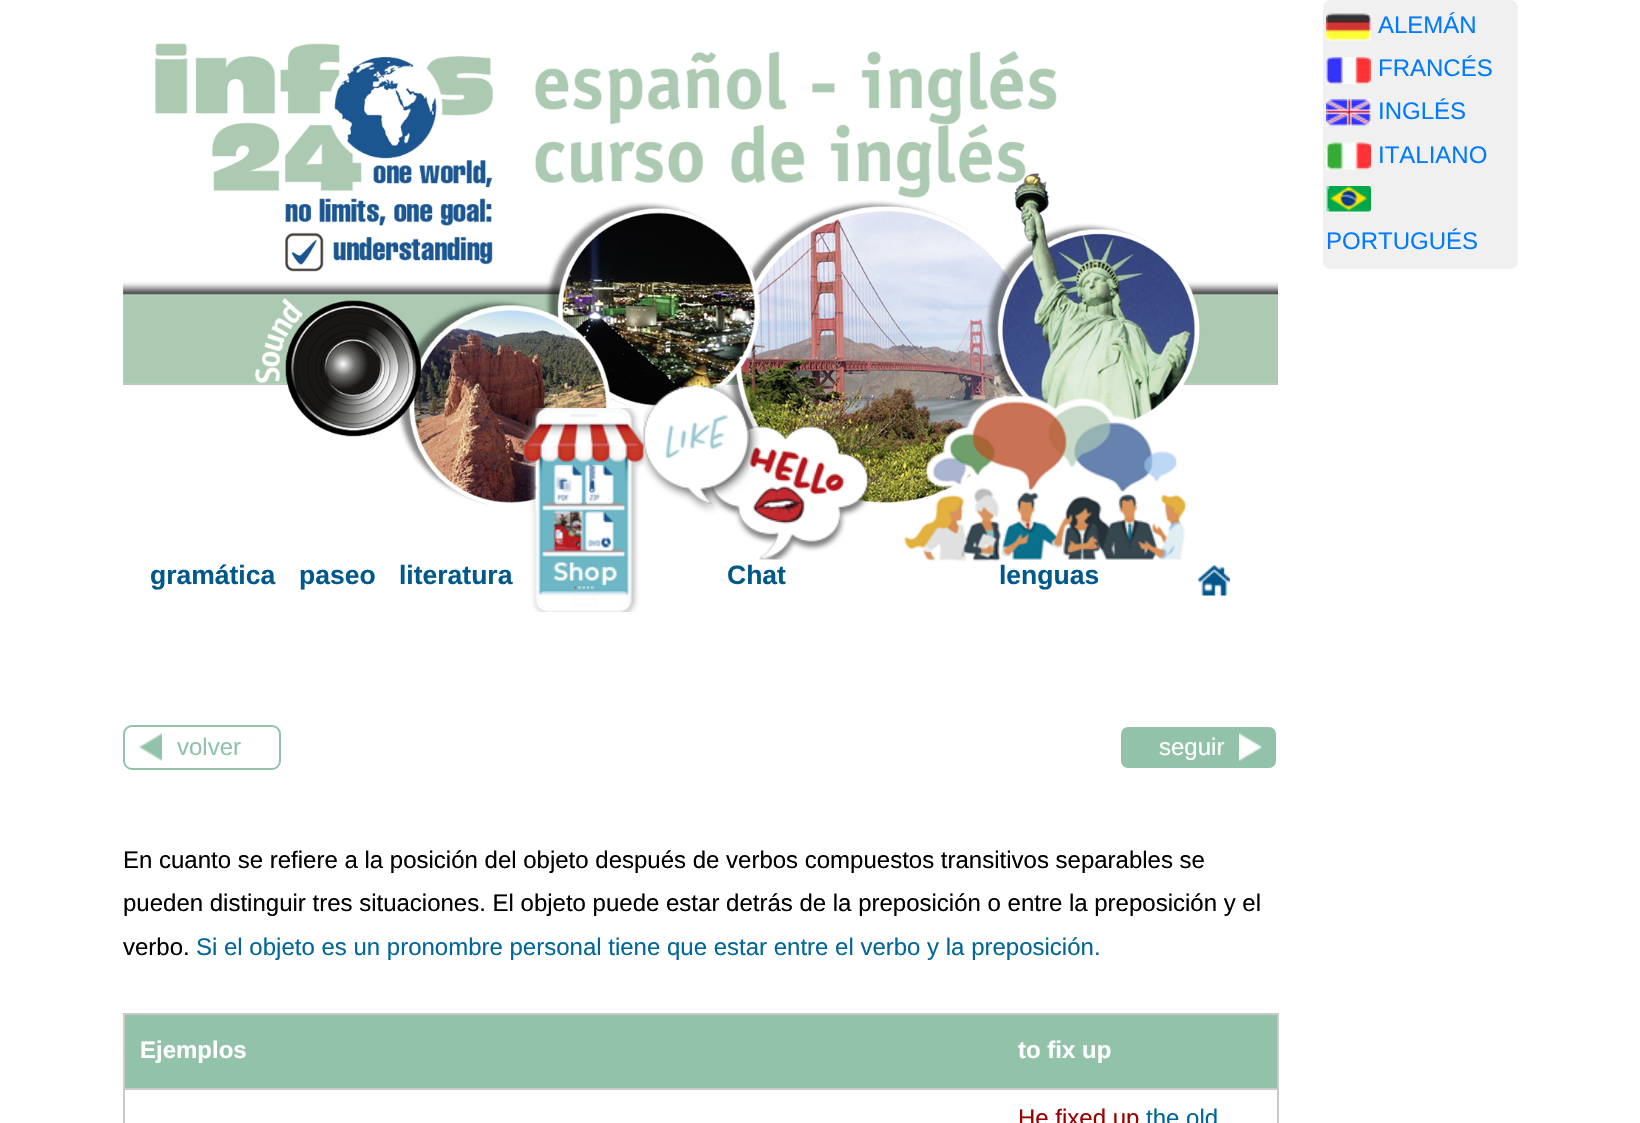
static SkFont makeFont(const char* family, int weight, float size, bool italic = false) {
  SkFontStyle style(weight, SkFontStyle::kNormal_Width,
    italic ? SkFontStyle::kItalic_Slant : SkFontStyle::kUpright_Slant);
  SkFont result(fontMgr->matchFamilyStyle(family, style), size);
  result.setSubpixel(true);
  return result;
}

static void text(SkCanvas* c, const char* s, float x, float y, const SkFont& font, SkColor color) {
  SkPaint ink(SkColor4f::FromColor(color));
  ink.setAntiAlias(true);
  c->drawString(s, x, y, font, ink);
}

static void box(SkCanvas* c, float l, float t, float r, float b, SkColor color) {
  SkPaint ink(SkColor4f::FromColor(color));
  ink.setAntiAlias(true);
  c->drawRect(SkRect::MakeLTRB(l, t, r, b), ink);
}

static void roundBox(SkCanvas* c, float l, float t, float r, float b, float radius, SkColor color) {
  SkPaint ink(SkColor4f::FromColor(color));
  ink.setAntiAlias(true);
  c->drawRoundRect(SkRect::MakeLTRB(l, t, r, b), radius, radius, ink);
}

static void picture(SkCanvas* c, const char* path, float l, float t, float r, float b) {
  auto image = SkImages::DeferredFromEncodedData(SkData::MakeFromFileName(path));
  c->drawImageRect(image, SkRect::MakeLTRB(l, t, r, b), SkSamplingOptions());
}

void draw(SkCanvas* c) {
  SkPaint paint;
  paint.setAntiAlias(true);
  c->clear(0xffffffff);
  roundBox(c, 1323, 0, 1518, 269, 8, 0xfff0f0f0);
  picture(c, "img_01.png", 1326, 13, 1371, 41);
  SkFont face1 = makeFont("Liberation Sans", 400, 24);
  text(c, "ALEMÁN", 1378, 33, face1, 0xff007bff);
  picture(c, "img_02.png", 1326, 57, 1371, 84);
  text(c, "FRANCÉS", 1378, 76, face1, 0xff007bff);
  picture(c, "img_03.png", 1326, 99, 1371, 126);
  text(c, "INGLÉS", 1378, 119, face1, 0xff007bff);
  picture(c, "img_04.png", 1326, 142, 1371, 170);
  text(c, "ITALIANO", 1378, 163, face1, 0xff007bff);
  picture(c, "img_05.png", 1326, 186, 1371, 213);
  text(c, "PORTUGUÉS", 1326, 249, face1, 0xff007bff);
  picture(c, "img_06.png", 123, 43, 1278, 505);
  SkFont face2 = makeFont("Liberation Sans", 700, 26.5f);
  text(c, "gramática", 150, 584, face2, 0xff01588a);
  text(c, "paseo", 299, 584, face2, 0xff01588a);
  text(c, "literatura", 399, 584, face2, 0xff01588a);
  picture(c, "img_07.png", 523, 408, 644, 612);
  picture(c, "img_08.png", 643, 385, 869, 560);
  text(c, "Chat", 727, 584, face2, 0xff01588a);
  picture(c, "img_09.png", 904, 394, 1187, 562);
  text(c, "lenguas", 999, 584, face2, 0xff01588a);
  picture(c, "img_10.png", 1198, 565, 1230, 596);
  paint.setStyle(SkPaint::kStroke_Style);
  paint.setStrokeWidth(2);
  paint.setColor(0xff92c3aa);
  c->drawRoundRect(SkRect::MakeLTRB(124, 726, 280, 769), 8, 8, paint);
  picture(c, "img_11.png", 139, 733, 162, 761);
  text(c, "volver", 177, 755, face1, 0xff92c3aa);
  paint.setStyle(SkPaint::kFill_Style);
  c->drawRoundRect(SkRect::MakeLTRB(1120, 726, 1277, 769), 8, 8, paint);
  paint.setStyle(SkPaint::kStroke_Style);
  paint.setColor(0xffffffff);
  c->drawRoundRect(SkRect::MakeLTRB(1120, 726, 1277, 769), 8, 8, paint);
  text(c, "seguir", 1159, 755, face1, 0xffffffff);
  picture(c, "img_12.png", 1239, 733, 1262, 761);
  text(c, "En cuanto se refiere a la posición del objeto después de verbos compuestos transitivos separables se", 123, 868, face1, 0xff000000);
  text(c, "pueden distinguir tres situaciones. El objeto puede estar detrás de la preposición o entre la preposición y el", 123, 911, face1, 0xff000000);
  text(c, "verbo.", 123, 955, face1, 0xff000000);
  text(c, "Si el objeto es un pronombre personal tiene que estar entre el verbo y la preposición.", 196, 955, face1, 0xff006699);
  box(c, 123, 1013, 1278, 1015, 0xffcacaca);
  box(c, 1277, 1013, 1279, 1123, 0xffcacaca);
  box(c, 123, 1013, 125, 1123, 0xffcacaca);
  box(c, 125, 1015, 1277, 1088, 0xff92c3aa);
  SkFont face3 = makeFont("Liberation Sans", 700, 24);
  text(c, "Ejemplos", 140, 1058, face3, 0xffffffff);
  box(c, 123, 1088, 1278, 1090, 0xffcacaca);
  text(c, "to fix up", 1018, 1058, face3, 0xffffffff);
  text(c, "He fixed up", 1018, 1126, face1, 0xff990000);
  text(c, "the old", 1146, 1126, face1, 0xff006699);
}
